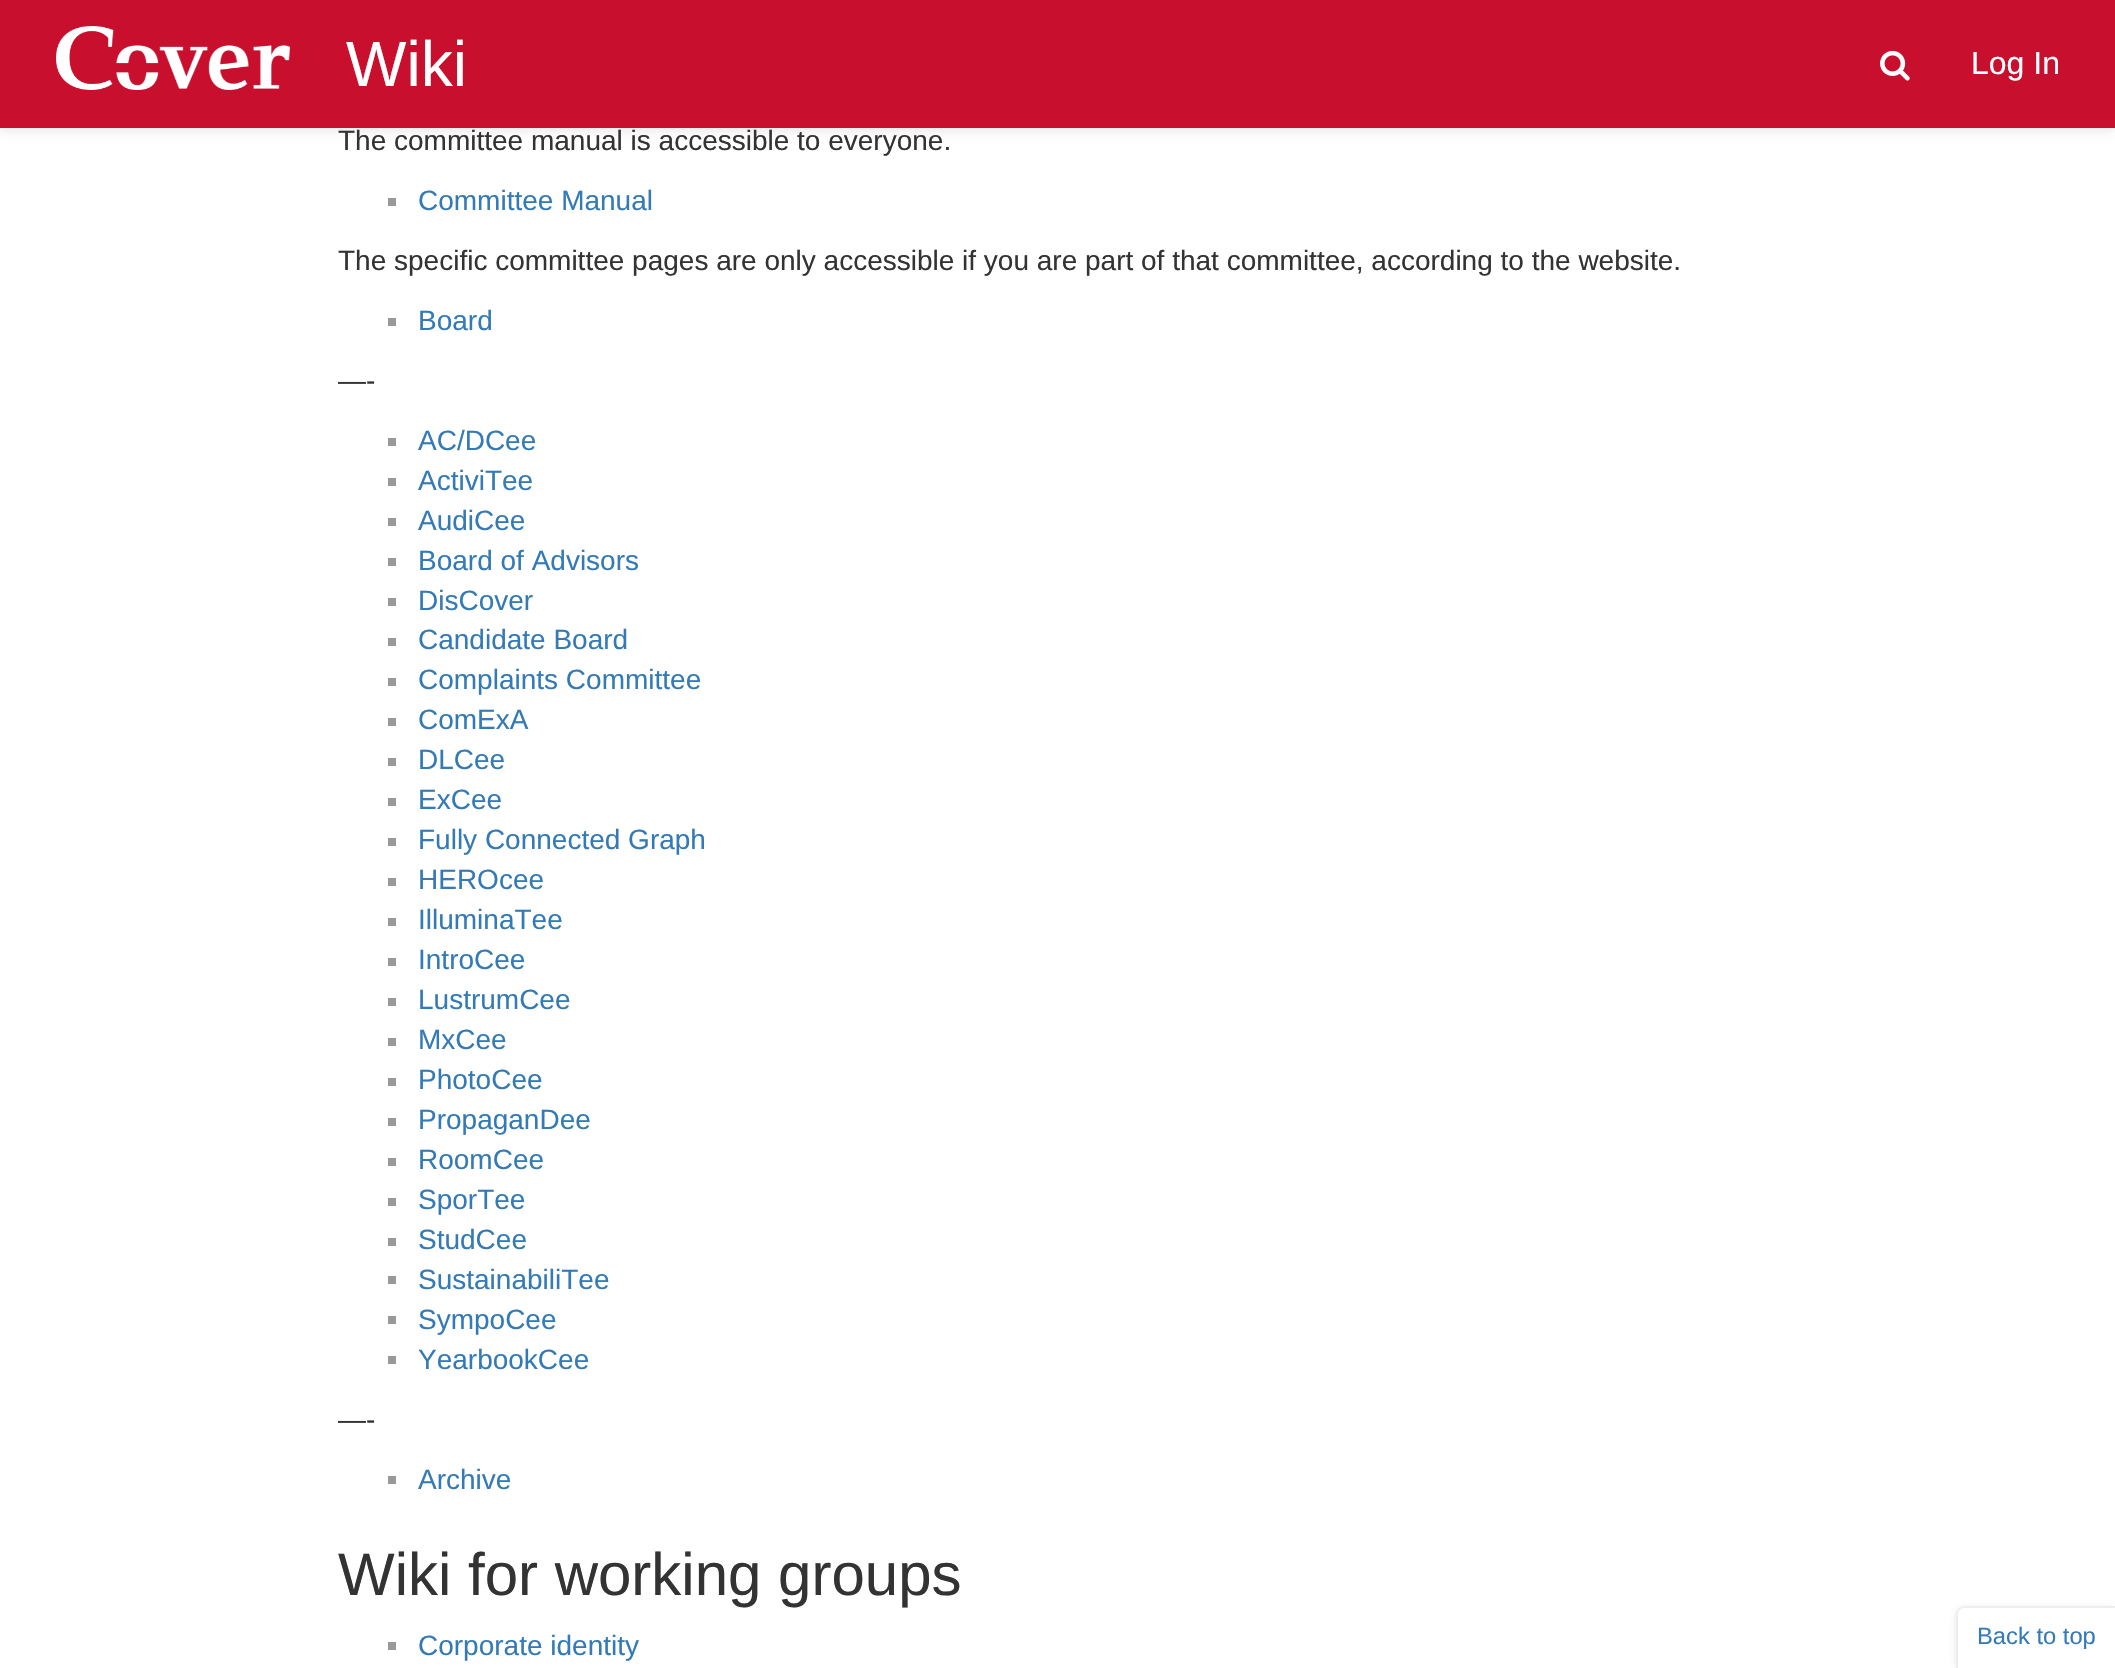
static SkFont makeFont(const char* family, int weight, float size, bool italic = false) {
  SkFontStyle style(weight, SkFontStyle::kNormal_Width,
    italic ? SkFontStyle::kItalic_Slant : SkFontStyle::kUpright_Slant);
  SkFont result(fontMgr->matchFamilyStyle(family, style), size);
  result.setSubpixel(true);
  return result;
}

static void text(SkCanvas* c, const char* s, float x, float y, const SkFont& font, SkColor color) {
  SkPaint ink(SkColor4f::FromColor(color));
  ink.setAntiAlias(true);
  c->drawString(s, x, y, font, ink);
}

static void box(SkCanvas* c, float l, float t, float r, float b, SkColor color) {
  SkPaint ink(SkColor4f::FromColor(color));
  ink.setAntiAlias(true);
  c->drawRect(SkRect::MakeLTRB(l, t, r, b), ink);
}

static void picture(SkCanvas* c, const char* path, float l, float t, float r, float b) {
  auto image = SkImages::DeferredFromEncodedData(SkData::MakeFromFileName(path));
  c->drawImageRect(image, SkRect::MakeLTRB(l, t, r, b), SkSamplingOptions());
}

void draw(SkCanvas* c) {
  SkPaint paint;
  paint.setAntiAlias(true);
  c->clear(0xffffffff);
  paint.setColor(0x1a000000);
  paint.setMaskFilter(SkMaskFilter::MakeBlur(kNormal_SkBlurStyle, 5));
  c->drawRect(SkRect::MakeLTRB(0, 2, 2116, 130), paint);
  paint.setMaskFilter(nullptr);
  box(c, 0, 0, 2115, 128, 0xffc8102e);
  picture(c, "img_01.png", 56, 26, 290, 90);
  SkFont face1 = makeFont("Liberation Sans", 400, 64);
  text(c, "Wiki", 346, 86, face1, 0xffffffff);
  picture(c, "img_02.png", 1880, 50, 1910, 81);
  SkFont face2 = makeFont("Liberation Sans", 400, 32);
  text(c, "Log In", 1971, 74, face2, 0xffffffff);
  SkFont face3 = makeFont("Liberation Sans", 400, 28);
  text(c, "The committee manual is accessible to everyone.", 338, 150, face3, 0xff333333);
  box(c, 388, 198, 396, 206, 0xff999999);
  text(c, "Committee Manual", 418, 210, face3, 0xff337ab7);
  text(c, "The specific committee pages are only accessible if you are part of that committee, according to the website.", 338, 270, face3, 0xff333333);
  box(c, 388, 318, 396, 326, 0xff999999);
  text(c, "Board", 418, 330, face3, 0xff337ab7);
  text(c, "—-", 338, 390, face3, 0xff333333);
  box(c, 388, 438, 396, 446, 0xff999999);
  text(c, "AC/DCee", 418, 450, face3, 0xff337ab7);
  box(c, 388, 478, 396, 486, 0xff999999);
  text(c, "ActiviTee", 418, 490, face3, 0xff337ab7);
  box(c, 388, 518, 396, 526, 0xff999999);
  text(c, "AudiCee", 418, 530, face3, 0xff337ab7);
  box(c, 388, 558, 396, 566, 0xff999999);
  text(c, "Board of Advisors", 418, 570, face3, 0xff337ab7);
  box(c, 388, 598, 396, 606, 0xff999999);
  text(c, "DisCover", 418, 610, face3, 0xff337ab7);
  box(c, 388, 638, 396, 646, 0xff999999);
  text(c, "Candidate Board", 418, 649, face3, 0xff337ab7);
  box(c, 388, 678, 396, 686, 0xff999999);
  text(c, "Complaints Committee", 418, 689, face3, 0xff337ab7);
  box(c, 388, 718, 396, 726, 0xff999999);
  text(c, "ComExA", 418, 729, face3, 0xff337ab7);
  box(c, 388, 758, 396, 766, 0xff999999);
  text(c, "DLCee", 418, 769, face3, 0xff337ab7);
  box(c, 388, 798, 396, 806, 0xff999999);
  text(c, "ExCee", 418, 809, face3, 0xff337ab7);
  box(c, 388, 838, 396, 846, 0xff999999);
  text(c, "Fully Connected Graph", 418, 849, face3, 0xff337ab7);
  box(c, 388, 878, 396, 886, 0xff999999);
  text(c, "HEROcee", 418, 889, face3, 0xff337ab7);
  box(c, 388, 918, 396, 926, 0xff999999);
  text(c, "IlluminaTee", 418, 929, face3, 0xff337ab7);
  box(c, 388, 958, 396, 966, 0xff999999);
  text(c, "IntroCee", 418, 969, face3, 0xff337ab7);
  box(c, 388, 998, 396, 1006, 0xff999999);
  text(c, "LustrumCee", 418, 1009, face3, 0xff337ab7);
  box(c, 388, 1038, 396, 1046, 0xff999999);
  text(c, "MxCee", 418, 1049, face3, 0xff337ab7);
  box(c, 388, 1078, 396, 1086, 0xff999999);
  text(c, "PhotoCee", 418, 1089, face3, 0xff337ab7);
  box(c, 388, 1118, 396, 1126, 0xff999999);
  text(c, "PropaganDee", 418, 1129, face3, 0xff337ab7);
  box(c, 388, 1158, 396, 1166, 0xff999999);
  text(c, "RoomCee", 418, 1169, face3, 0xff337ab7);
  box(c, 388, 1198, 396, 1206, 0xff999999);
  text(c, "SporTee", 418, 1209, face3, 0xff337ab7);
  box(c, 388, 1238, 396, 1246, 0xff999999);
  text(c, "StudCee", 418, 1249, face3, 0xff337ab7);
  box(c, 388, 1276, 396, 1284, 0xff999999);
  text(c, "SustainabiliTee", 418, 1289, face3, 0xff337ab7);
  box(c, 388, 1316, 396, 1324, 0xff999999);
  text(c, "SympoCee", 418, 1329, face3, 0xff337ab7);
  box(c, 388, 1356, 396, 1364, 0xff999999);
  text(c, "YearbookCee", 418, 1369, face3, 0xff337ab7);
  text(c, "—-", 338, 1429, face3, 0xff333333);
  box(c, 388, 1476, 396, 1484, 0xff999999);
  text(c, "Archive", 418, 1489, face3, 0xff337ab7);
  SkFont face4 = makeFont("Liberation Sans", 400, 60);
  text(c, "Wiki for working groups", 338, 1595, face4, 0xff333333);
  box(c, 388, 1642, 396, 1650, 0xff999999);
  text(c, "Corporate identity", 418, 1655, face3, 0xff337ab7);
  paint.setMaskFilter(SkMaskFilter::MakeBlur(kNormal_SkBlurStyle, 3));
  c->drawRoundRect(SkRect::MakeLTRB(1956, 1608, 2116, 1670), 8, 8, paint);
  paint.setMaskFilter(nullptr);
  paint.setColor(0xffffffff);
  c->drawPath(SkPathBuilder().moveTo(1964, 1606).lineTo(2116, 1606).lineTo(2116, 1668).lineTo(1956, 1668).lineTo(1956, 1614).cubicTo(1956, 1609.5f, 1959.5f, 1606, 1964, 1606).close().detach(), paint);
  paint.setColor(0xffeeeeee);
  c->drawPath(SkPathBuilder(SkPathFillType::kEvenOdd).moveTo(1964, 1606).lineTo(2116, 1606).lineTo(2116, 1668).lineTo(1956, 1668).lineTo(1956, 1614).cubicTo(1956, 1610, 1960, 1606, 1964, 1606).close().moveTo(1964, 1608).lineTo(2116, 1608).lineTo(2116, 1668).lineTo(1958, 1668).lineTo(1958, 1614).cubicTo(1958, 1611, 1961, 1608, 1964, 1608).close().detach(), paint);
  SkFont face5 = makeFont("Liberation Sans", 400, 23.75f);
  text(c, "Back to top", 1977, 1644, face5, 0xff337ab7);
}
